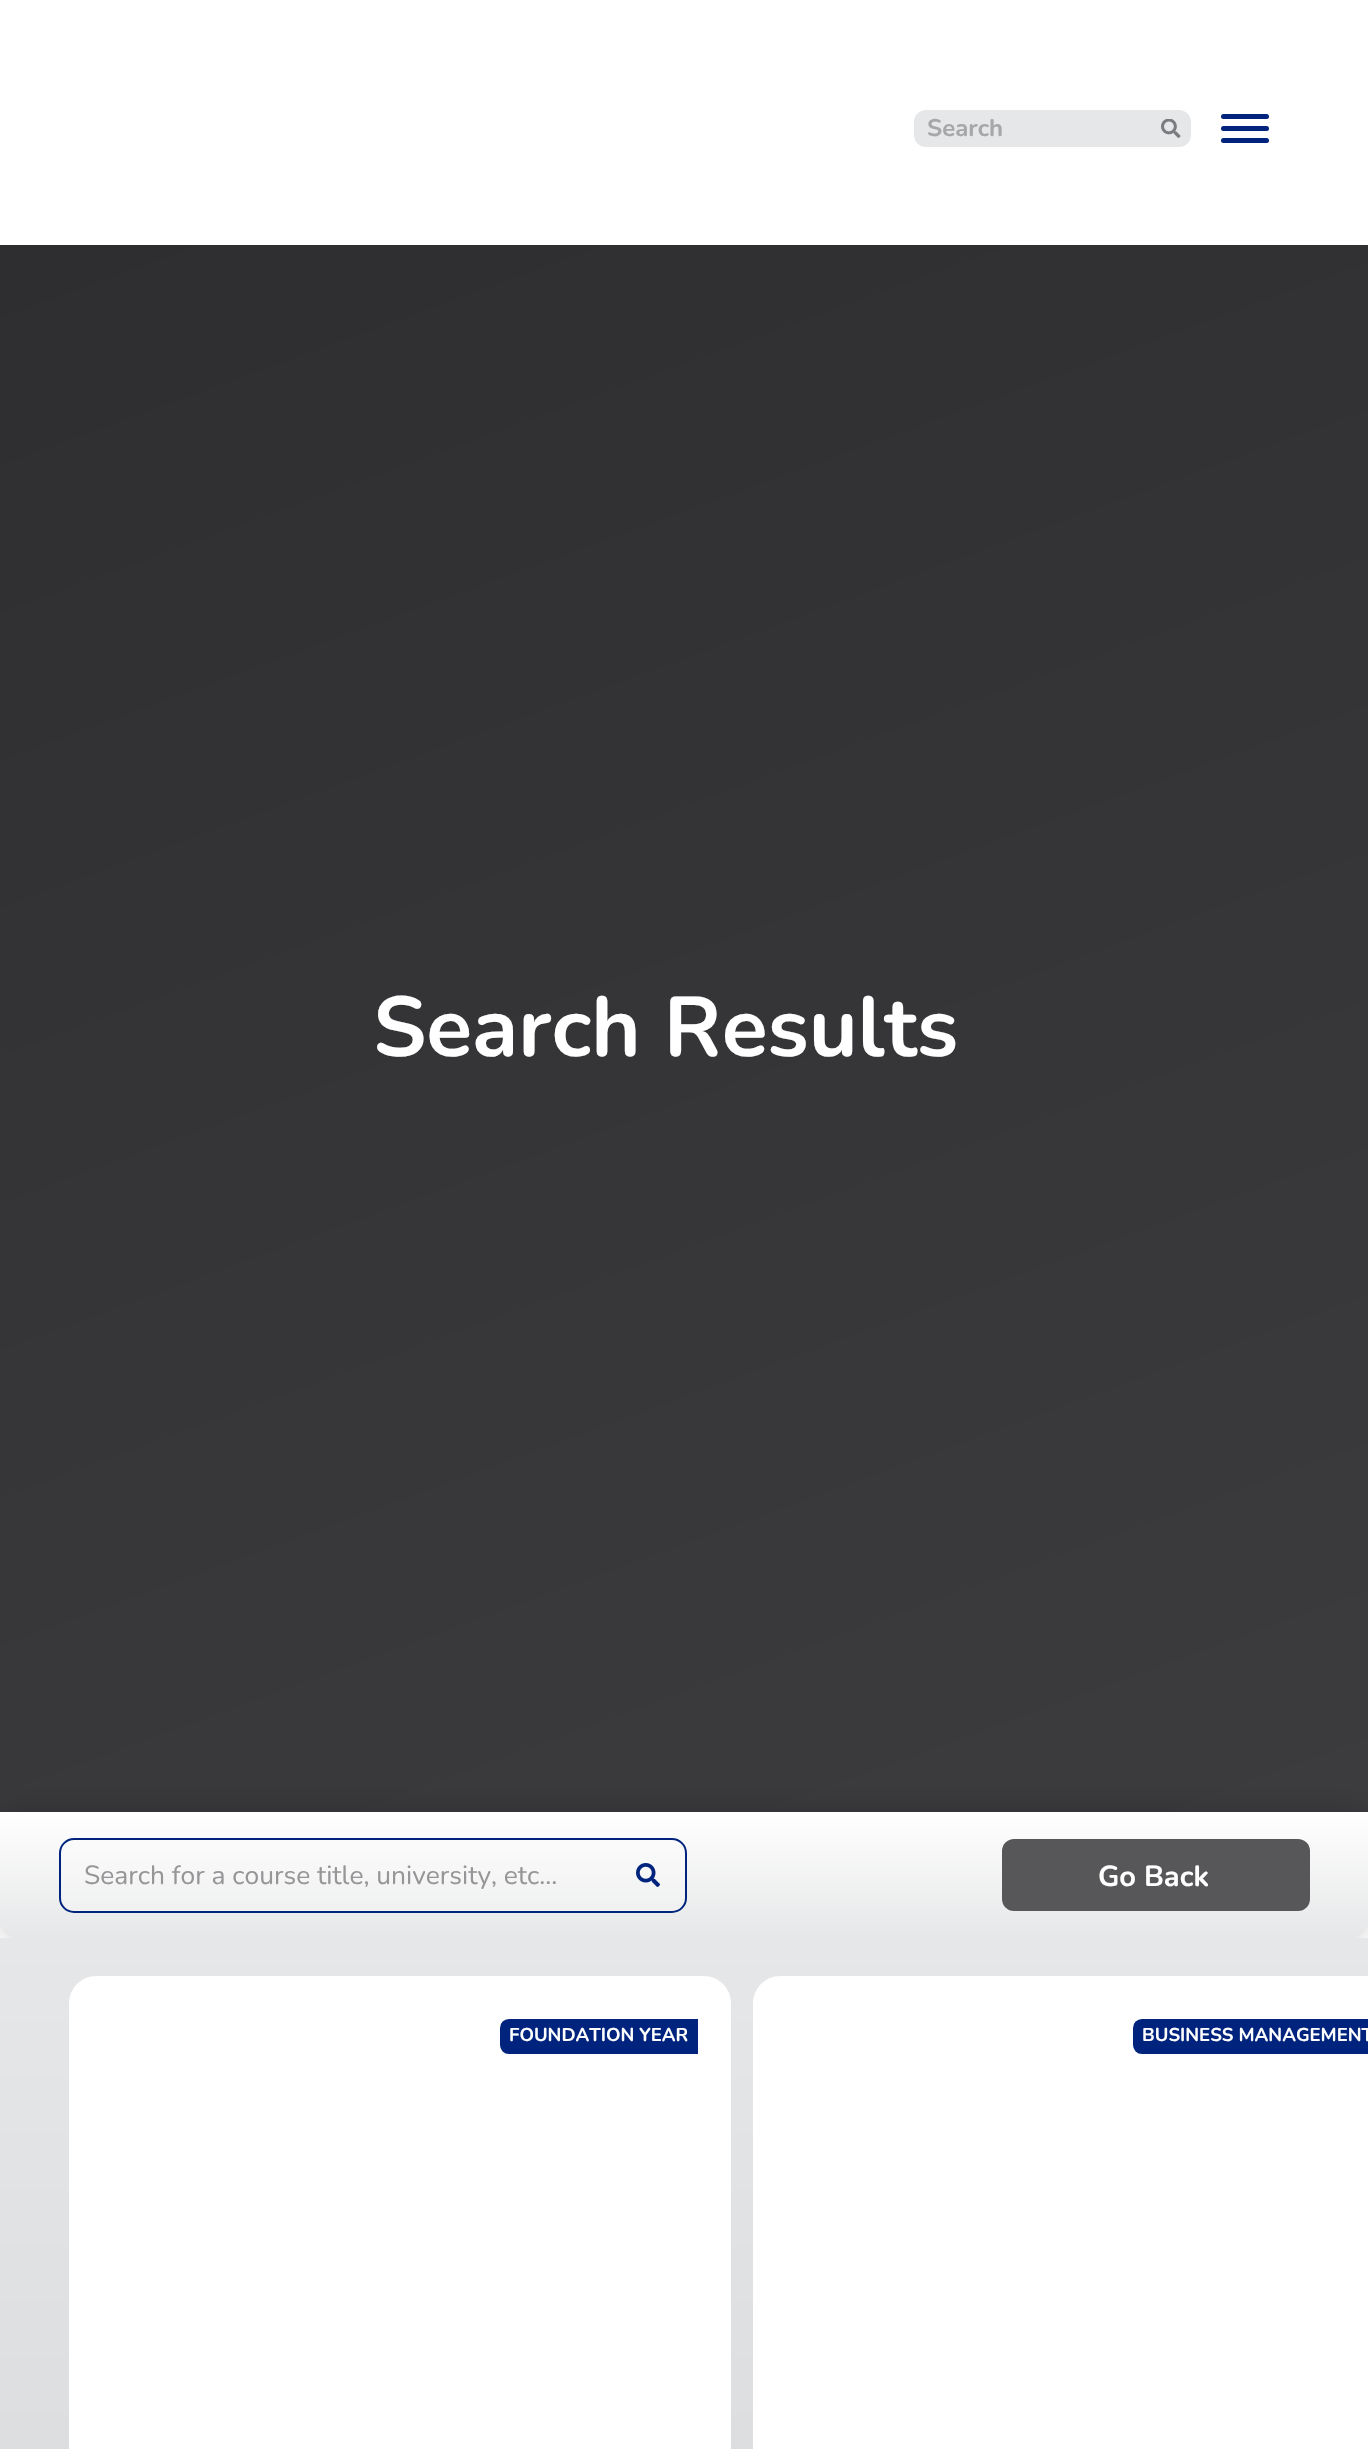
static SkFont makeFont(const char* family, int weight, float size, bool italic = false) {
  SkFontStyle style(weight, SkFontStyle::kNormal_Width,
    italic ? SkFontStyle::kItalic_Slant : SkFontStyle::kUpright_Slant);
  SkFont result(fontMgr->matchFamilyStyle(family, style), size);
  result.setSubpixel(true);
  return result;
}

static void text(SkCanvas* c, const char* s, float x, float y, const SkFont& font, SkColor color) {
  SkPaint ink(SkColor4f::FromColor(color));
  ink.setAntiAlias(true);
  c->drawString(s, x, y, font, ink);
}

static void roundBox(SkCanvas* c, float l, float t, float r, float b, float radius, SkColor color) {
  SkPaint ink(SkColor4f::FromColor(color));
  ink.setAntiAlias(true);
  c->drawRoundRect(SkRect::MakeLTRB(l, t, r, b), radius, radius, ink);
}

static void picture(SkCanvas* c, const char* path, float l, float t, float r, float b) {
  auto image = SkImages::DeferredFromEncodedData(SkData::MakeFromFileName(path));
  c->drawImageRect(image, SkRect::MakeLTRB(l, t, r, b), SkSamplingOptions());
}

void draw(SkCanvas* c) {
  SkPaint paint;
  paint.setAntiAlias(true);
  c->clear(0xffffffff);
  paint.setColor(0xffe6e7e8);
  c->drawRoundRect(SkRect::MakeLTRB(915, 111, 1190, 146), 11, 11, paint);
  paint.setStyle(SkPaint::kStroke_Style);
  paint.setStrokeWidth(2);
  c->drawRoundRect(SkRect::MakeLTRB(915, 111, 1190, 146), 11, 11, paint);
  SkFont face1 = makeFont("Nunito", 700, 24);
  text(c, "Search", 927, 136, face1, 0xffa5a7a9);
  picture(c, "img_01.png", 1161, 119, 1181, 138);
  roundBox(c, 1221, 114, 1269, 119, 2.5f, 0xff00247d);
  roundBox(c, 1221, 126, 1269, 131, 2.5f, 0xff00247d);
  roundBox(c, 1221, 138, 1269, 143, 2.5f, 0xff00247d);
  paint.setStyle(SkPaint::kFill_Style);
  {
    const SkColor colors[] = {0xff3c3c3f, 0xff2e2e31};
    const float stops[] = {0, 1};
    const SkPoint ends[] = {{1016, 1940}, {352, 116}};
    paint.setShader(SkGradientShader::MakeLinear(ends, colors, stops, 2, SkTileMode::kClamp));
    paint.setAlpha(255);
  }
  c->drawRect(SkRect::MakeLTRB(0, 245, 1368, 1812), paint);
  SkFont face2 = makeFont("Nunito", 700, 84.5f);
  text(c, "Search Results", 373, 1056, face2, 0xffffffff);
  paint.setShader(nullptr);
  paint.setColor(0x33000000);
  paint.setMaskFilter(SkMaskFilter::MakeBlur(kNormal_SkBlurStyle, 15));
  c->drawRoundRect(SkRect::MakeLTRB(0, 1812, 1368, 1938), 18, 18, paint);
  paint.setMaskFilter(nullptr);
  {
    const SkColor colors[] = {0xffffffff, 0xffe6e7e8};
    const float stops[] = {0, 1};
    const SkPoint ends[] = {{684, 1812}, {684, 1938}};
    paint.setShader(SkGradientShader::MakeLinear(ends, colors, stops, 2, SkTileMode::kClamp));
    paint.setAlpha(255);
  }
  c->drawPath(SkPathBuilder().moveTo(0, 1812).lineTo(1368, 1812).lineTo(1368, 1920).cubicTo(1368, 1930, 1360, 1938, 1350, 1938).lineTo(18, 1938).cubicTo(8, 1938, 0, 1930, 0, 1920).close().detach(), paint);
  paint.setShader(nullptr);
  paint.setColor(0x40ffffff);
  c->drawRoundRect(SkRect::MakeLTRB(60, 1839, 686, 1912), 14, 14, paint);
  paint.setStyle(SkPaint::kStroke_Style);
  paint.setColor(0xff00247d);
  c->drawRoundRect(SkRect::MakeLTRB(60, 1839, 686, 1912), 14, 14, paint);
  SkFont face3 = makeFont("Nunito", 400, 26.4f);
  text(c, "Search for a course title, university, etc...", 84, 1884, face3, 0xff969698);
  picture(c, "img_02.png", 636, 1863, 660, 1887);
  roundBox(c, 1002, 1839, 1310, 1911, 12, 0xff575759);
  SkFont face4 = makeFont("Nunito", 700, 29);
  text(c, "Go Back", 1098, 1886, face4, 0xffffffff);
  paint.setStyle(SkPaint::kFill_Style);
  {
    const SkColor colors[] = {0xffe6e7e8, 0xffc8cbce};
    const float stops[] = {0, 1};
    const SkPoint ends[] = {{684, 1938}, {684, 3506}};
    paint.setShader(SkGradientShader::MakeLinear(ends, colors, stops, 2, SkTileMode::kClamp));
    paint.setAlpha(255);
  }
  c->drawRect(SkRect::MakeLTRB(0, 1938, 1368, 2449), paint);
  roundBox(c, 69, 1976, 731, 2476, 27, 0xffffffff);
  paint.setShader(nullptr);
  paint.setColor(0xff00247d);
  c->drawPath(SkPathBuilder().moveTo(509, 2020).lineTo(697, 2020).lineTo(697, 2053).lineTo(509, 2053).cubicTo(504.5f, 2053, 501, 2049.5f, 501, 2045).lineTo(501, 2028).cubicTo(501, 2023.5f, 504.5f, 2020, 509, 2020).close().detach(), paint);
  paint.setStyle(SkPaint::kStroke_Style);
  c->drawPath(SkPathBuilder().moveTo(509, 2020).lineTo(697, 2020).lineTo(697, 2053).lineTo(509, 2053).cubicTo(504.5f, 2053, 501, 2049.5f, 501, 2045).lineTo(501, 2028).cubicTo(501, 2023.5f, 504.5f, 2020, 509, 2020).close().detach(), paint);
  SkFont face5 = makeFont("Nunito", 700, 18.5f);
  text(c, "FOUNDATION YEAR", 509, 2041, face5, 0xffffffff);
  roundBox(c, 753, 1976, 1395, 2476, 27, 0xffffffff);
  paint.setStyle(SkPaint::kFill_Style);
  c->drawPath(SkPathBuilder().moveTo(1142, 2020).lineTo(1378, 2020).lineTo(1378, 2053).lineTo(1142, 2053).cubicTo(1137.5f, 2053, 1134, 2049.5f, 1134, 2045).lineTo(1134, 2028).cubicTo(1134, 2023.5f, 1137.5f, 2020, 1142, 2020).close().detach(), paint);
  paint.setStyle(SkPaint::kStroke_Style);
  c->drawPath(SkPathBuilder().moveTo(1142, 2020).lineTo(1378, 2020).lineTo(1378, 2053).lineTo(1142, 2053).cubicTo(1137.5f, 2053, 1134, 2049.5f, 1134, 2045).lineTo(1134, 2028).cubicTo(1134, 2023.5f, 1137.5f, 2020, 1142, 2020).close().detach(), paint);
  text(c, "BUSINESS MANAGEMENT", 1142, 2041, face5, 0xffffffff);
}
